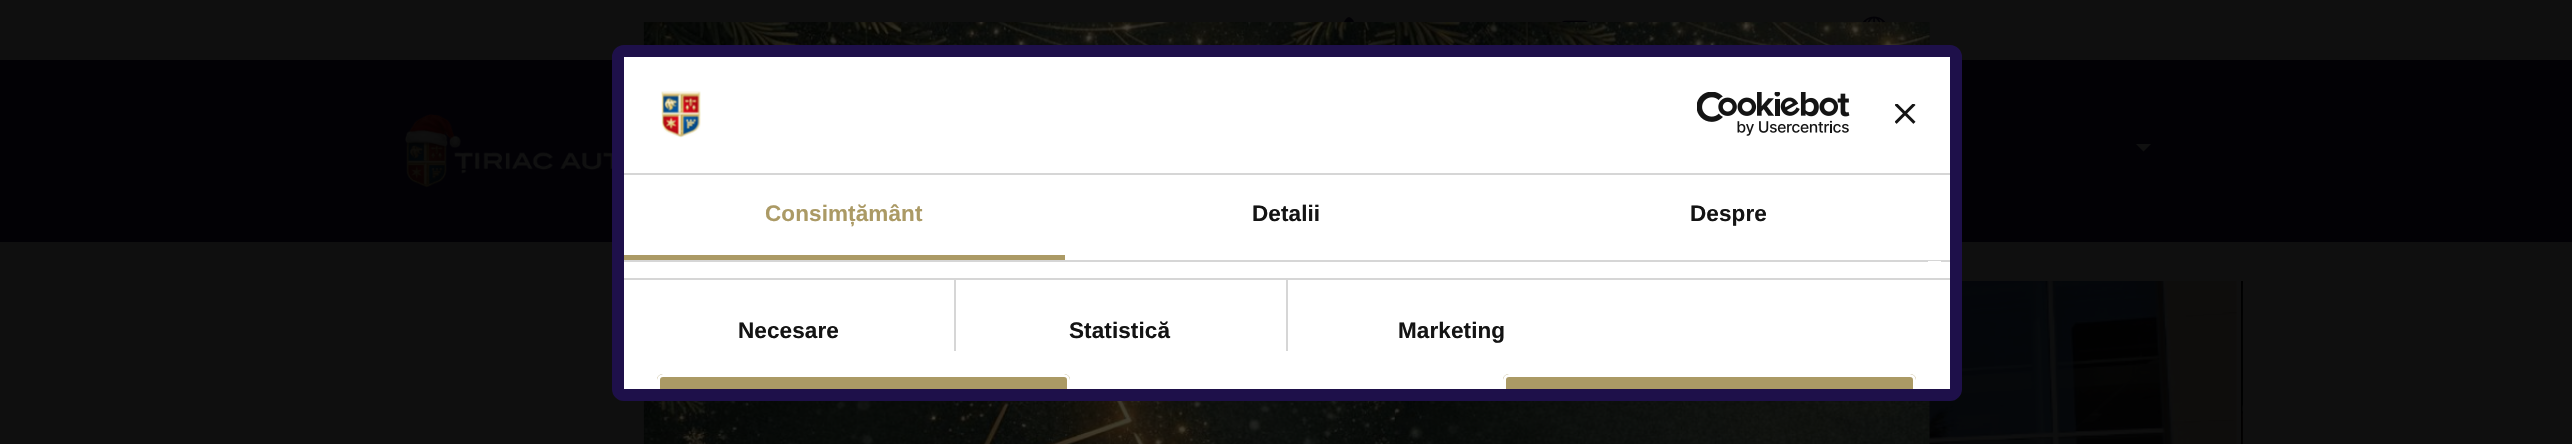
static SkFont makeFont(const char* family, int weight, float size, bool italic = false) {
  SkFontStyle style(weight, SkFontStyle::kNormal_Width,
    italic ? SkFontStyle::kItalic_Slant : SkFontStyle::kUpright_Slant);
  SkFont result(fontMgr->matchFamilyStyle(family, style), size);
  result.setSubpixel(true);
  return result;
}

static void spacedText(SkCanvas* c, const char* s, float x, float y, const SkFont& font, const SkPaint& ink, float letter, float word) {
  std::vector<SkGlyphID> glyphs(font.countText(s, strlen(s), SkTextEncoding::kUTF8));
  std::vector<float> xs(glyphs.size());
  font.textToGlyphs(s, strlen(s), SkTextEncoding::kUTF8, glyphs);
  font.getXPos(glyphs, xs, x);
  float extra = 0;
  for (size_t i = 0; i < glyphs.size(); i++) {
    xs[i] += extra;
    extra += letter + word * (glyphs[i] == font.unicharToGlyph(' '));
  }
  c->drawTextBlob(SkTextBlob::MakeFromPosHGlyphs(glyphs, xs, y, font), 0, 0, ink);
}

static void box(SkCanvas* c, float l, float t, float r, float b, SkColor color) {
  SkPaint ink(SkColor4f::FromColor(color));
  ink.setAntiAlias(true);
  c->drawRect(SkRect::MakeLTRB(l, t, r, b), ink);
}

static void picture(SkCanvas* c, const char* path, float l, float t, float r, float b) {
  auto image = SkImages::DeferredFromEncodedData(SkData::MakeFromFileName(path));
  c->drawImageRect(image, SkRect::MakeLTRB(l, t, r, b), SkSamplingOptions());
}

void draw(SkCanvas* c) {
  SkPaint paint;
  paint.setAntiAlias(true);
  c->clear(0xff0f0f0f);
  picture(c, "img_01.png", 1343, 17, 1354, 23);
  picture(c, "img_02.png", 1561, 20, 1589, 23);
  picture(c, "img_03.png", 1862, 16, 1886, 23);
  box(c, 0, 60, 2572, 242, 0xff020105);
  picture(c, "img_04.png", 405, 114, 612, 188);
  paint.setColor(0xff101010);
  c->drawPath(SkPathBuilder().moveTo(2136, 144).lineTo(2151, 144).lineTo(2143.5f, 151.5f).close().detach(), paint);
  picture(c, "img_05.png", 1929, 281, 2238, 444);
  picture(c, "img_06.png", 2241, 281, 2243, 444);
  picture(c, "img_07.png", 643, 22, 1930, 444);
  picture(c, "img_08.png", 643, 22, 1930, 444);
  paint.setColor(0xffffffff);
  c->drawRoundRect(SkRect::MakeLTRB(618, 51, 1956, 395), 6, 6, paint);
  paint.setStyle(SkPaint::kStroke_Style);
  paint.setStrokeWidth(12);
  paint.setColor(0xff1e104a);
  c->drawRoundRect(SkRect::MakeLTRB(618, 51, 1956, 395), 6, 6, paint);
  box(c, 624, 173, 1950, 175, 0xffd6d6d6);
  picture(c, "img_09.png", 661, 91, 701, 138);
  picture(c, "img_10.png", 1697, 92, 1850, 136);
  picture(c, "img_11.png", 1895, 104, 1916, 124);
  box(c, 624, 260, 1950, 262, 0xffd6d6d6);
  box(c, 624, 255, 1065, 260, 0xffab9a65);
  SkFont face1 = makeFont("Liberation Sans", 700, 22.5f);
  paint.setStyle(SkPaint::kFill_Style);
  paint.setColor(0xffab9a65);
  spacedText(c, "Consimțământ", 765, 221, face1, paint, 0.1f, 0);
  paint.setColor(0xff141414);
  spacedText(c, "Detalii", 1252, 221, face1, paint, 0.1f, 0);
  spacedText(c, "Despre", 1690, 221, face1, paint, 0.1f, 0);
  box(c, 954, 279, 956, 351, 0xffd6d6d6);
  box(c, 1286, 279, 1288, 351, 0xffd6d6d6);
  box(c, 624, 278, 1950, 280, 0xffd6d6d6);
  box(c, 1928, 261, 1941, 262, 0xffffffff);
  spacedText(c, "Necesare", 738, 338, face1, paint, 0.1f, 0);
  spacedText(c, "Statistică", 1069, 338, face1, paint, 0.1f, 0);
  spacedText(c, "Marketing", 1398, 338, face1, paint, 0.1f, 0);
  paint.setColor(0xffab9a65);
  c->drawPath(SkPathBuilder().moveTo(663, 374).lineTo(1064, 374).cubicTo(1067.5f, 374, 1070, 376.5f, 1070, 380).lineTo(1070, 389).lineTo(657, 389).lineTo(657, 380).cubicTo(657, 376.5f, 659.5f, 374, 663, 374).close().detach(), paint);
  c->save();
  c->clipRect(SkRect::MakeLTRB(624, 57, 1950, 389));
  paint.setStyle(SkPaint::kStroke_Style);
  paint.setStrokeWidth(3);
  paint.setColor(0xffffffff);
  c->drawRoundRect(SkRect::MakeLTRB(658.5f, 375.5f, 1068.5f, 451.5f), 4.5f, 4.5f, paint);
  c->restore();
  paint.setStyle(SkPaint::kFill_Style);
  paint.setColor(0xffab9a65);
  c->drawPath(SkPathBuilder().moveTo(1509, 374).lineTo(1910, 374).cubicTo(1913.5f, 374, 1916, 376.5f, 1916, 380).lineTo(1916, 389).lineTo(1503, 389).lineTo(1503, 380).cubicTo(1503, 376.5f, 1505.5f, 374, 1509, 374).close().detach(), paint);
  c->save();
  c->clipRect(SkRect::MakeLTRB(624, 57, 1950, 389));
  paint.setStyle(SkPaint::kStroke_Style);
  paint.setColor(0xffffffff);
  c->drawRoundRect(SkRect::MakeLTRB(1504.5f, 375.5f, 1914.5f, 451.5f), 4.5f, 4.5f, paint);
  c->restore();
}
